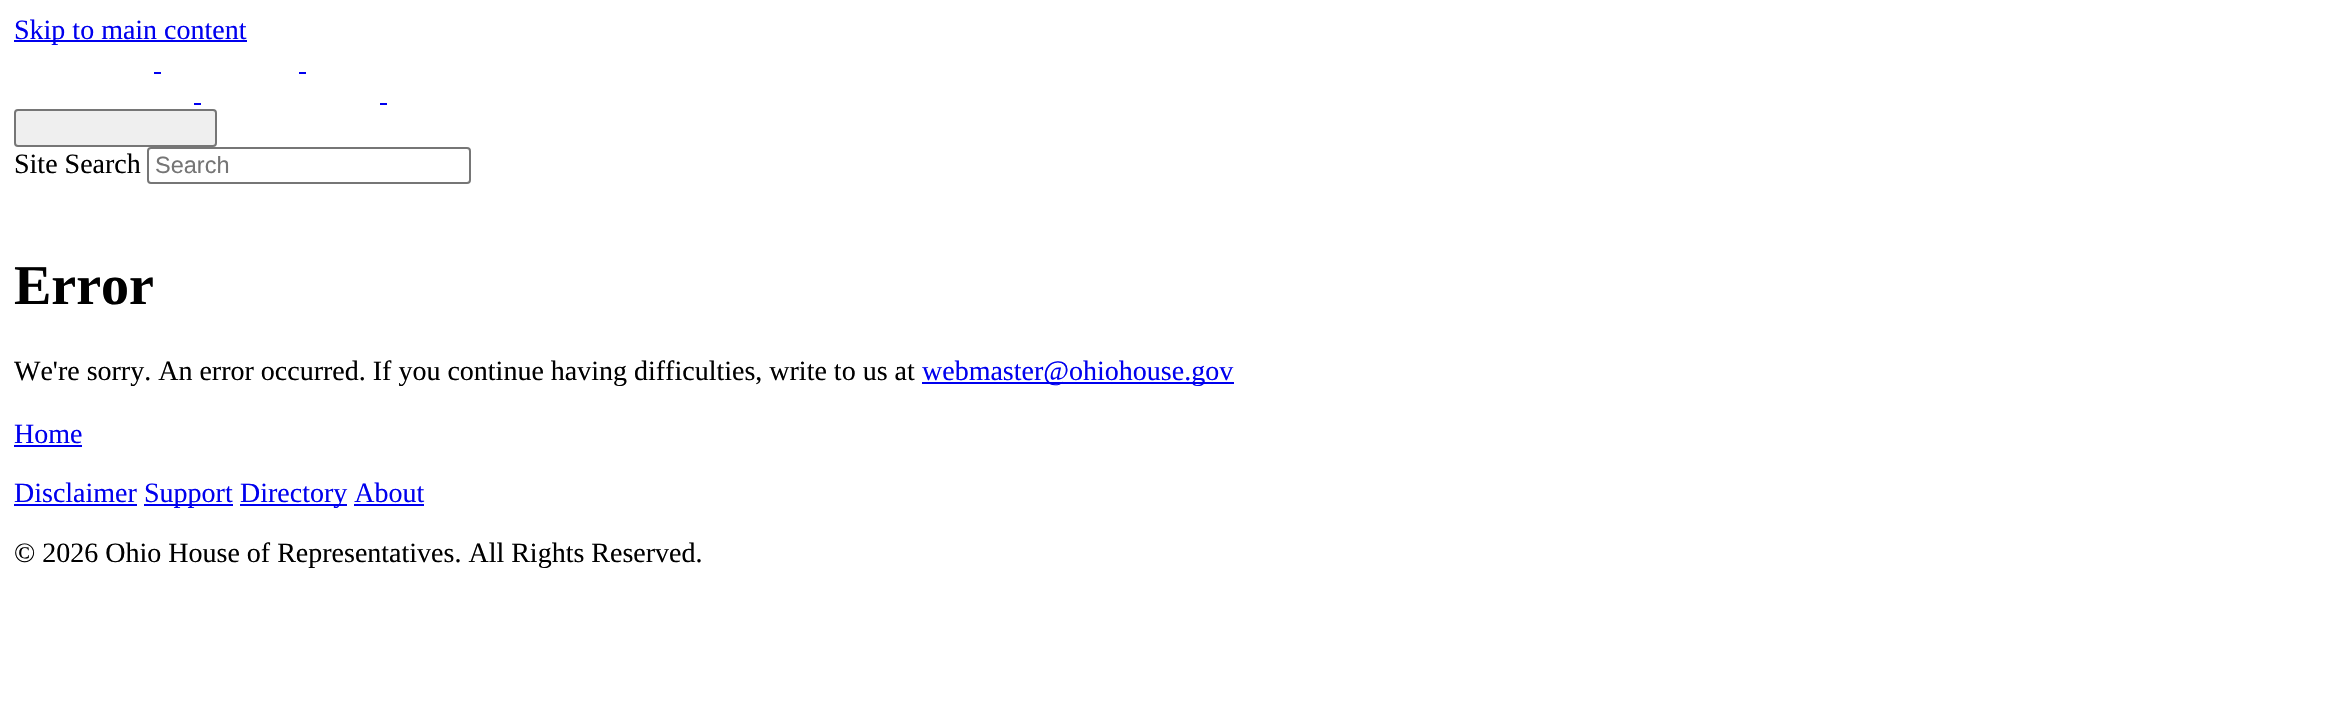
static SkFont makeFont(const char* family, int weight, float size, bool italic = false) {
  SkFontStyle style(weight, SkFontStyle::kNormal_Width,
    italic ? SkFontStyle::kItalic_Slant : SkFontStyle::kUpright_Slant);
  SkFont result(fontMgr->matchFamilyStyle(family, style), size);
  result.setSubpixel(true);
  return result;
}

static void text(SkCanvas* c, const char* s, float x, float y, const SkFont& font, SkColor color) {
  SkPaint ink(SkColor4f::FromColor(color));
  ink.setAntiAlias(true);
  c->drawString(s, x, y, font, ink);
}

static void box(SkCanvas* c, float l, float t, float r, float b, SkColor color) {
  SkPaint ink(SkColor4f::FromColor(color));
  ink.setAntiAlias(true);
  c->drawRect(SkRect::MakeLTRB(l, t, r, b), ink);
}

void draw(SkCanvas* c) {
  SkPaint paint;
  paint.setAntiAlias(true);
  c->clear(0xffffffff);
  box(c, 14, 40, 247, 42, 0xff0000ee);
  SkFont face1 = makeFont("Liberation Serif", 400, 28);
  text(c, "Skip to main content", 14, 39, face1, 0xff0000ee);
  box(c, 154, 72, 161, 74, 0xff0000ee);
  box(c, 299, 72, 306, 74, 0xff0000ee);
  box(c, 194, 103, 201, 105, 0xff0000ee);
  box(c, 380, 103, 387, 105, 0xff0000ee);
  paint.setColor(0xffefefef);
  c->drawRoundRect(SkRect::MakeLTRB(15, 110, 216, 146), 3, 3, paint);
  paint.setStyle(SkPaint::kStroke_Style);
  paint.setStrokeWidth(2);
  paint.setColor(0xff767676);
  c->drawRoundRect(SkRect::MakeLTRB(15, 110, 216, 146), 3, 3, paint);
  text(c, "Site Search", 14, 173, face1, 0xff000000);
  c->drawRoundRect(SkRect::MakeLTRB(148, 148, 470, 183), 3, 3, paint);
  SkFont face2 = makeFont("Liberation Sans", 400, 23.5f);
  text(c, "Search", 155, 173, face2, 0xff757575);
  SkFont face3 = makeFont("Liberation Serif", 700, 56);
  text(c, "Error", 14, 304, face3, 0xff000000);
  text(c, "We're sorry. An error occurred. If you continue having difficulties, write to us at", 14, 380, face1, 0xff000000);
  box(c, 922, 382, 1234, 384, 0xff0000ee);
  text(c, "webmaster@ohiohouse.gov", 922, 380, face1, 0xff0000ee);
  text(c, "Home", 14, 443, face1, 0xff0000ee);
  box(c, 14, 445, 82, 447, 0xff0000ee);
  text(c, "Disclaimer", 14, 502, face1, 0xff0000ee);
  box(c, 14, 504, 137, 506, 0xff0000ee);
  box(c, 144, 504, 233, 506, 0xff0000ee);
  text(c, "Support", 144, 502, face1, 0xff0000ee);
  box(c, 240, 504, 347, 506, 0xff0000ee);
  text(c, "Directory About", 240, 502, face1, 0xff0000ee);
  box(c, 354, 504, 424, 506, 0xff0000ee);
  text(c, "© 2026 Ohio House of Representatives. All Rights Reserved.", 14, 562, face1, 0xff000000);
}
